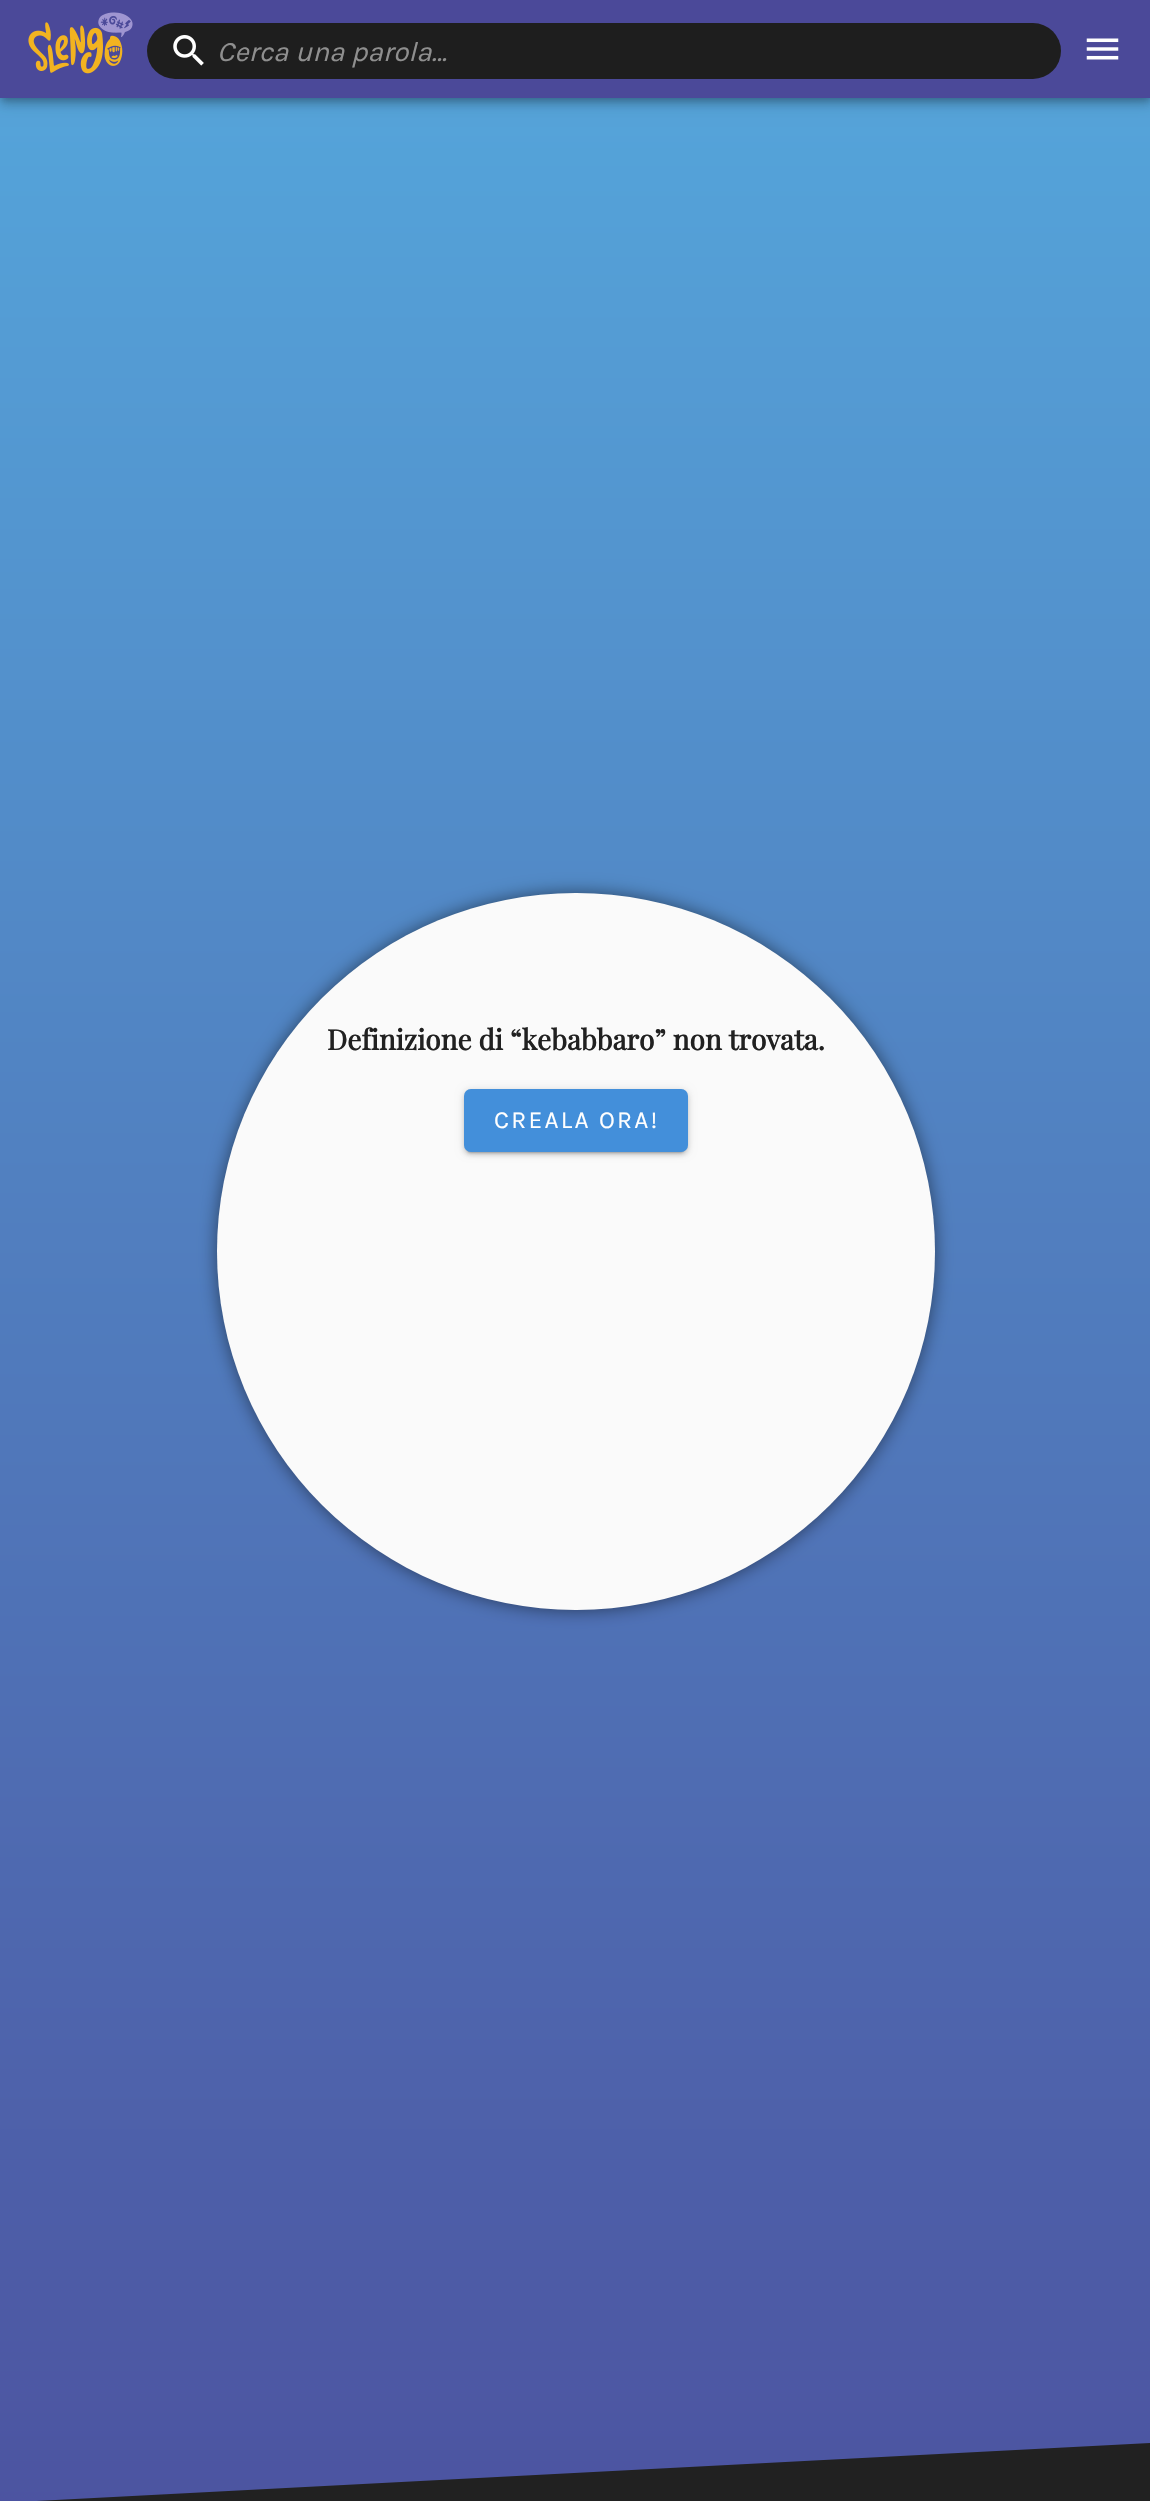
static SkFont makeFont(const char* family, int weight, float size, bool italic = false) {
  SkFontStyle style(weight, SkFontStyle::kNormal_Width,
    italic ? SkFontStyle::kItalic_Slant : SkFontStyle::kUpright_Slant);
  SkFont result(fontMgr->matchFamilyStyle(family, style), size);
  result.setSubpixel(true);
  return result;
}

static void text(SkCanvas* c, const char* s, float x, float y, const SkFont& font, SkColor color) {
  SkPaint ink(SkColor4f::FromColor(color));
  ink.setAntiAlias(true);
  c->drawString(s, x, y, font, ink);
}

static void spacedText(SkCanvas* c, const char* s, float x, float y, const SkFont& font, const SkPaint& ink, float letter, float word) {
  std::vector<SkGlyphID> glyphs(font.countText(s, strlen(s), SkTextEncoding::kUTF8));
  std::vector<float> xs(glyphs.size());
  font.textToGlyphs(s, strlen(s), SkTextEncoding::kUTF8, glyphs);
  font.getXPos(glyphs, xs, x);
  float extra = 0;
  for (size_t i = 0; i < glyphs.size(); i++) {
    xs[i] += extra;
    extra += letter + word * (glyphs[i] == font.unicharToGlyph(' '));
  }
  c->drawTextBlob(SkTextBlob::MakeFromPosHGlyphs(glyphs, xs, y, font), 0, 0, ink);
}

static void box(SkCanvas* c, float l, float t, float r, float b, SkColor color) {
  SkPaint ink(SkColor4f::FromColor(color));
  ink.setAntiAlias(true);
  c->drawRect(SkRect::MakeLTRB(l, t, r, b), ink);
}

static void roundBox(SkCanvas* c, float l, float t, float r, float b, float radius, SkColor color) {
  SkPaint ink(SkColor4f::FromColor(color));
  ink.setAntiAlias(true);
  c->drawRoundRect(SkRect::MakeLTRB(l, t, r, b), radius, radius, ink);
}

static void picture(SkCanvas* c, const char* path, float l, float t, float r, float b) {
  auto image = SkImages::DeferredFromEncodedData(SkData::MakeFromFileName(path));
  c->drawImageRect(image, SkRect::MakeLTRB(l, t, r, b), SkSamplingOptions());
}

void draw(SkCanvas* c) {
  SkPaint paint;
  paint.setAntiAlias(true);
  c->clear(0xffffffff);
  {
    const SkColor colors[] = {0xff55a7dc, 0xff4b4999};
    const float stops[] = {0, 1};
    const SkPoint ends[] = {{576, 0}, {576, 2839}};
    paint.setShader(SkGradientShader::MakeLinear(ends, colors, stops, 2, SkTileMode::kClamp));
    paint.setAlpha(255);
  }
  c->drawRect(SkRect::MakeLTRB(0, 98, 1150, 2501), paint);
  paint.setShader(nullptr);
  paint.setColor(0x1f000000);
  paint.setMaskFilter(SkMaskFilter::MakeBlur(kNormal_SkBlurStyle, 9));
  c->drawRect(SkRect::MakeLTRB(0, 2, 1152, 100), paint);
  paint.setMaskFilter(nullptr);
  paint.setColor(0x24000000);
  paint.setMaskFilter(SkMaskFilter::MakeBlur(kNormal_SkBlurStyle, 4.5f));
  c->drawRect(SkRect::MakeLTRB(0, 7, 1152, 105), paint);
  paint.setMaskFilter(nullptr);
  paint.setColor(0x33000000);
  paint.setMaskFilter(SkMaskFilter::MakeBlur(kNormal_SkBlurStyle, 3.5f));
  c->drawRect(SkRect::MakeLTRB(2, 5, 1150, 100), paint);
  paint.setMaskFilter(nullptr);
  box(c, 0, 0, 1150, 98, 0xff4b4999);
  picture(c, "img_01.png", 28, 12, 133, 74);
  roundBox(c, 147, 23, 1061, 79, 28, 0xff1e1e1e);
  picture(c, "img_02.png", 173, 35, 204, 66);
  SkFont face1 = makeFont("Karla", 400, 28, true);
  text(c, "Cerca una parola…", 217, 61, face1, 0xff8f8f8f);
  picture(c, "img_03.png", 1086, 38, 1119, 60);
  paint.setColor(0x80000000);
  paint.setMaskFilter(SkMaskFilter::MakeBlur(kNormal_SkBlurStyle, 9));
  c->drawRoundRect(SkRect::MakeLTRB(217, 893, 935, 1610), 358.5f, 358.5f, paint);
  paint.setMaskFilter(nullptr);
  roundBox(c, 217, 893, 935, 1610, 358.5f, 0xfffafafa);
  SkFont face2 = makeFont("Playfair Display", 700, 28);
  text(c, "Definizione di “kebabbaro” non trovata.", 327, 1050, face2, 0xff212121);
  paint.setColor(0x1f000000);
  paint.setMaskFilter(SkMaskFilter::MakeBlur(kNormal_SkBlurStyle, 4.5f));
  c->drawRoundRect(SkRect::MakeLTRB(464, 1090, 688, 1153), 7, 7, paint);
  paint.setMaskFilter(nullptr);
  paint.setColor(0x24000000);
  paint.setMaskFilter(SkMaskFilter::MakeBlur(kNormal_SkBlurStyle, 2));
  c->drawRoundRect(SkRect::MakeLTRB(464, 1092, 688, 1155), 7, 7, paint);
  paint.setMaskFilter(nullptr);
  paint.setColor(0x33000000);
  paint.setMaskFilter(SkMaskFilter::MakeBlur(kNormal_SkBlurStyle, 1));
  c->drawRoundRect(SkRect::MakeLTRB(467, 1097, 684, 1153), 4, 4, paint);
  paint.setMaskFilter(nullptr);
  roundBox(c, 464, 1089, 688, 1152, 7, 0xff1976d2);
  roundBox(c, 464, 1089, 688, 1152, 7, 0x2effffff);
  SkFont face3 = makeFont("Karla", 400, 24.5f);
  paint.setColor(0xffffffff);
  spacedText(c, "CREALA ORA!", 494, 1128, face3, paint, 2.25f, 0);
  paint.setColor(0xff212121);
  c->drawPath(SkPathBuilder().moveTo(-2, 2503).lineTo(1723, 2413).lineTo(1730, 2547).lineTo(5, 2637).close().detach(), paint);
}
